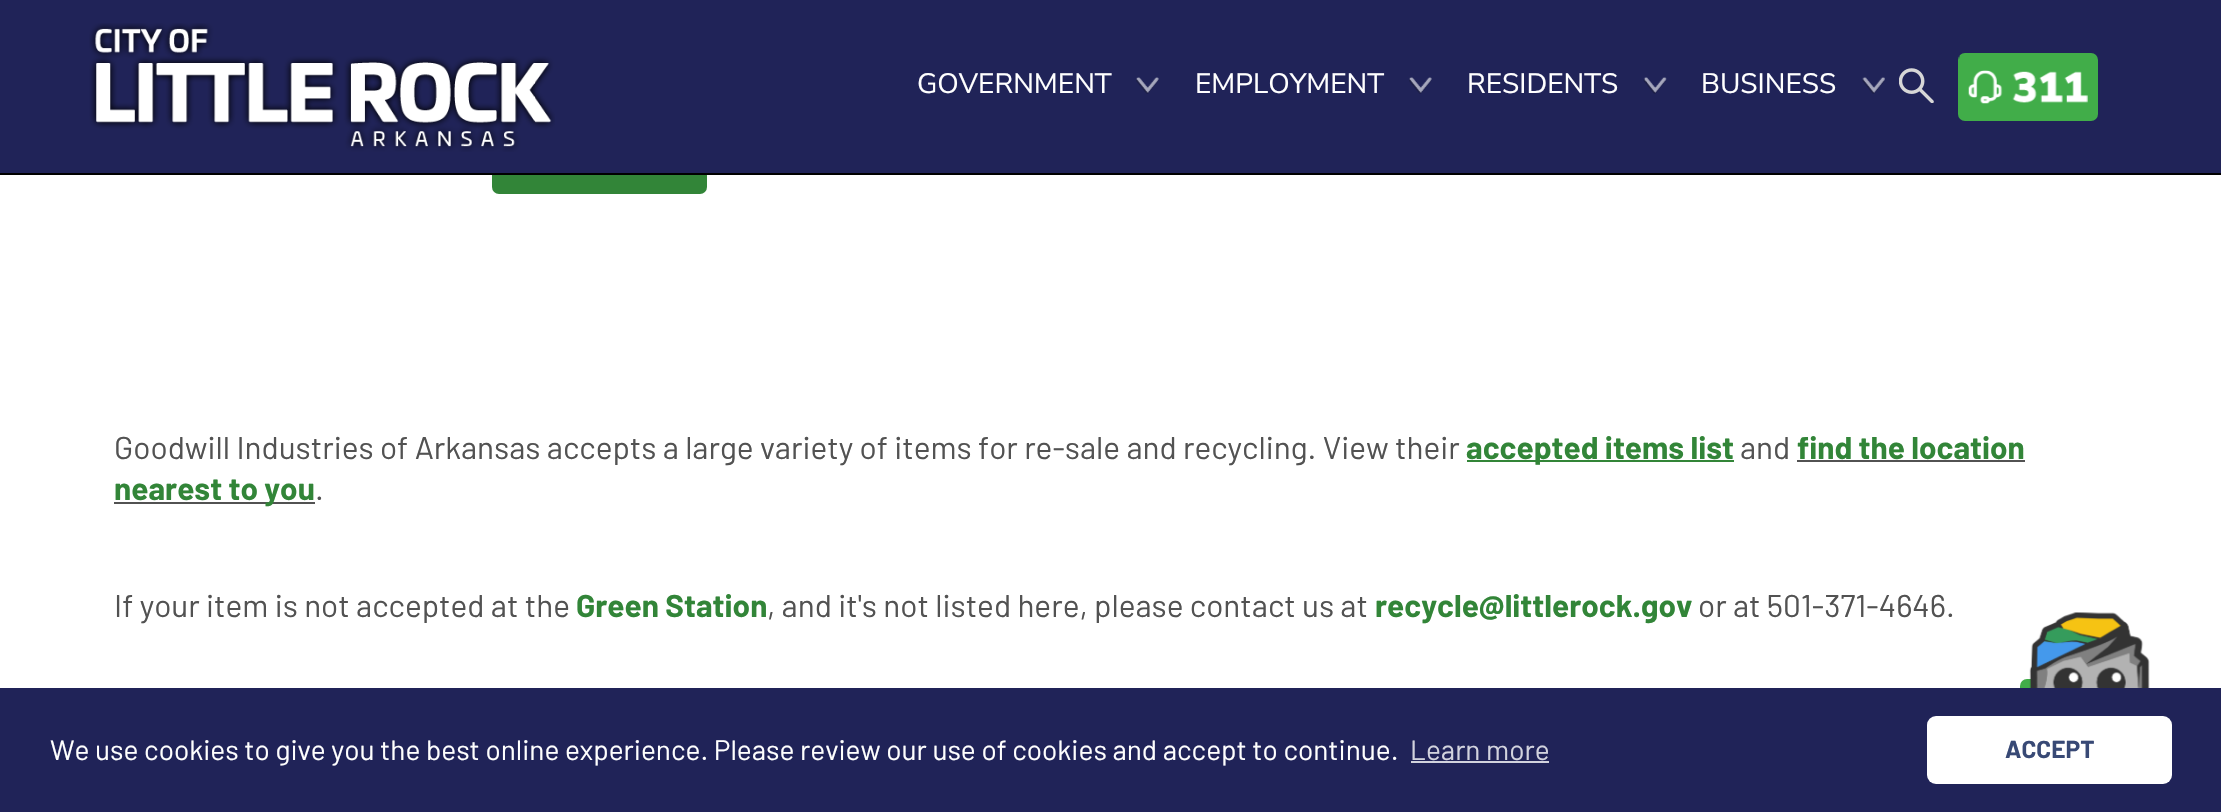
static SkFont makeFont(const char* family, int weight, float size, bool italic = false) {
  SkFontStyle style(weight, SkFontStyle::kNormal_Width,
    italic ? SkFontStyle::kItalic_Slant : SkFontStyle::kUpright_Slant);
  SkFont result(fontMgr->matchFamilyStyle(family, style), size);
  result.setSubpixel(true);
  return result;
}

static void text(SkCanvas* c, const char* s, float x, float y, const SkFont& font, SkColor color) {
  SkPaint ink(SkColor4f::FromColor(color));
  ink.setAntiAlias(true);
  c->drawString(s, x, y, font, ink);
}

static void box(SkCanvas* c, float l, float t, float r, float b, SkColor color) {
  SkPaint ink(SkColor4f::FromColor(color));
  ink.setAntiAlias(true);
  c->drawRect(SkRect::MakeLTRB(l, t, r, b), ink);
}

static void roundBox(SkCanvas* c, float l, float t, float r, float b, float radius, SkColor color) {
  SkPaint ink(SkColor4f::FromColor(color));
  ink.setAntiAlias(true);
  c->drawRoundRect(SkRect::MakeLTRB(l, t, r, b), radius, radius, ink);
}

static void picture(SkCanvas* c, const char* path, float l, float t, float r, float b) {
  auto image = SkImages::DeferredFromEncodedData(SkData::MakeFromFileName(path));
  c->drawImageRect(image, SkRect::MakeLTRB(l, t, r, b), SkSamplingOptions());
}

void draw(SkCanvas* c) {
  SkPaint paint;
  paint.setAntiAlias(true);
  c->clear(0xffffffff);
  roundBox(c, 492, 124, 707, 194, 7, 0xff328538);
  box(c, 0, 0, 2221, 173, 0xff202358);
  box(c, 0, 173, 2221, 175, 0xff000000);
  picture(c, "img_01.png", 89, 23, 555, 152);
  SkFont face1 = makeFont("Nunito Sans", 400, 28);
  text(c, "GOVERNMENT", 917, 93, face1, 0xffffffff);
  picture(c, "img_02.png", 1136, 77, 1159, 94);
  text(c, "EMPLOYMENT", 1195, 93, face1, 0xffffffff);
  picture(c, "img_02.png", 1409, 77, 1432, 94);
  text(c, "RESIDENTS", 1467, 93, face1, 0xffffffff);
  picture(c, "img_03.png", 1643, 77, 1667, 94);
  text(c, "BUSINESS", 1701, 93, face1, 0xffffffff);
  picture(c, "img_04.png", 1862, 77, 1885, 94);
  roundBox(c, 1958, 53, 2098, 121, 7, 0xff41ad49);
  paint.setColor(0xff202358);
  c->drawPath(SkPathBuilder().moveTo(1923, 54).lineTo(1955, 54).cubicTo(1958, 54, 1960, 57, 1960, 60).cubicTo(1960, 52, 1956, 53, 1950, 53).lineTo(1928, 53).cubicTo(1922, 53, 1918, 52, 1918, 60).cubicTo(1918, 57, 1920, 54, 1923, 54).close().detach(), paint);
  picture(c, "img_05.png", 1899, 68, 1934, 103);
  picture(c, "img_06.png", 1968, 70, 2088, 104);
  SkFont face2 = makeFont("Barlow", 400, 31.5f);
  text(c, "Goodwill Industries of Arkansas accepts a large variety of items for re-sale and recycling. View their", 114, 459, face2, 0xff525252);
  box(c, 1467, 460, 1734, 462, 0xff328538);
  SkFont face3 = makeFont("Barlow", 700, 31.5f);
  text(c, "accepted items list", 1466, 459, face3, 0xff328538);
  text(c, "and", 1740, 459, face2, 0xff525252);
  text(c, "find the location", 1797, 459, face3, 0xff328538);
  box(c, 1797, 460, 2025, 462, 0xff525252);
  box(c, 114, 502, 315, 504, 0xff525252);
  text(c, "nearest to you", 114, 500, face3, 0xff328538);
  text(c, ".", 315, 500, face2, 0xff525252);
  text(c, "If your item is not accepted at the", 114, 617, face2, 0xff525252);
  text(c, "Green Station", 576, 617, face3, 0xff328538);
  text(c, ", and it's not listed here, please contact us at", 767, 617, face2, 0xff525252);
  text(c, "recycle@littlerock.gov", 1375, 617, face3, 0xff328538);
  text(c, "or at 501-371-4646.", 1698, 617, face2, 0xff525252);
  roundBox(c, 2020, 679, 2109, 768, 7, 0xff41ad49);
  picture(c, "img_07.png", 2000, 612, 2180, 688);
  box(c, 0, 688, 2221, 812, 0xff202358);
  SkFont face4 = makeFont("Barlow", 400, 28);
  text(c, "We use cookies to give you the best online experience. Please review our use of cookies and accept to continue.", 50, 760, face4, 0xffffffff);
  text(c, "Learn more", 1410, 760, face4, 0xffd2d3de);
  box(c, 1411, 761, 1549, 763, 0xffd2d3de);
  roundBox(c, 1927, 716, 2172, 784, 9, 0xffffffff);
  SkFont face5 = makeFont("Barlow", 700, 24.5f);
  text(c, "ACCEPT", 2005, 758, face5, 0xff384975);
}
